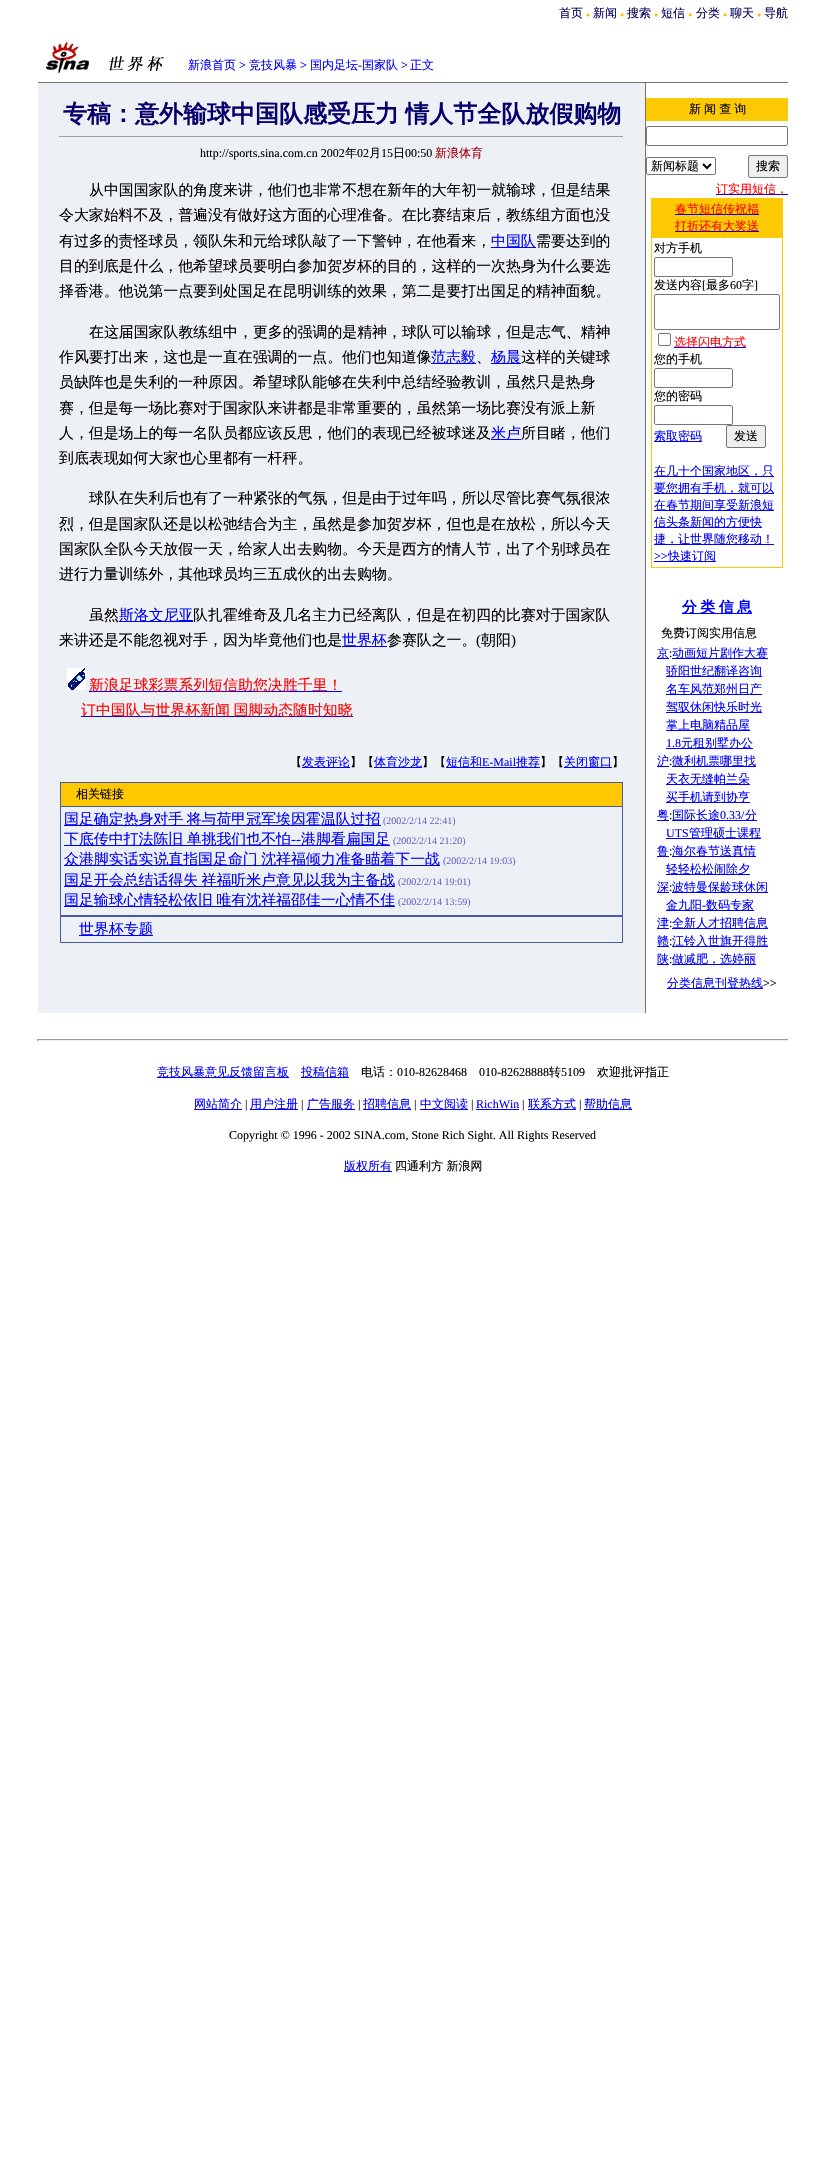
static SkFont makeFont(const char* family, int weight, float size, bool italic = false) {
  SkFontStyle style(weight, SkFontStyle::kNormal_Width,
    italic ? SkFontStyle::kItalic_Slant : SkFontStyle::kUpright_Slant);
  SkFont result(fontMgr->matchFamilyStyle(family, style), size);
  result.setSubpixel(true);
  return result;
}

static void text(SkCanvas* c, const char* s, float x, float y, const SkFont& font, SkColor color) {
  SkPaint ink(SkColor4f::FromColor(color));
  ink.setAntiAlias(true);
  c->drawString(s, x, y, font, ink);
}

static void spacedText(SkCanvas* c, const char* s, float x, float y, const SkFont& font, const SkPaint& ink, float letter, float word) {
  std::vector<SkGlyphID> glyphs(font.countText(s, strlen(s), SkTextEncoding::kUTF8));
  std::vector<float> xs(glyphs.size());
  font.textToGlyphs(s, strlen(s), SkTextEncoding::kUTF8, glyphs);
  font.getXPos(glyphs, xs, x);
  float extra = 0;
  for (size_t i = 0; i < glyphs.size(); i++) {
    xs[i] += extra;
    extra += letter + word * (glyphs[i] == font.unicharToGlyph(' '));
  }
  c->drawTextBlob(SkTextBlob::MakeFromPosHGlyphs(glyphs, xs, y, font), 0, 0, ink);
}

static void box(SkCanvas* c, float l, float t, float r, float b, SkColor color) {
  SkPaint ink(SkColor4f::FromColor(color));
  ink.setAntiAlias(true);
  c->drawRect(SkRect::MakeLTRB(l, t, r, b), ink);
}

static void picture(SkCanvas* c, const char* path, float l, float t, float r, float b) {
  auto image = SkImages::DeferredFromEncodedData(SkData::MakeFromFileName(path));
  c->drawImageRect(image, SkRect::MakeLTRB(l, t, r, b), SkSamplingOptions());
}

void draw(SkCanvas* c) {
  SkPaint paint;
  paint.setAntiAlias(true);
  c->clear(0xffffffff);
  SkFont face1 = makeFont("WenQuanYi Zen Hei", 500, 12);
  text(c, "首页", 559, 17, face1, 0xff07015b);
  SkFont face2 = makeFont("Liberation Serif", 400, 7);
  text(c, "●", 586, 17, face2, 0xffffbd00);
  text(c, "新闻", 593, 17, face1, 0xff07015b);
  text(c, "●", 620, 17, face2, 0xffffbd00);
  text(c, "搜索", 627, 17, face1, 0xff07015b);
  text(c, "●", 654, 17, face2, 0xffffbd00);
  text(c, "短信", 661, 17, face1, 0xff07015b);
  text(c, "●", 688, 17, face2, 0xffffbd00);
  text(c, "分类", 696, 17, face1, 0xff07015b);
  text(c, "●", 723, 17, face2, 0xffffbd00);
  text(c, "聊天", 730, 17, face1, 0xff07015b);
  text(c, "●", 757, 17, face2, 0xffffbd00);
  text(c, "导航", 764, 17, face1, 0xff07015b);
  picture(c, "img_01.png", 45, 42, 164, 74);
  text(c, "新浪首页", 188, 69, face1, 0xff0000ff);
  SkFont face3 = makeFont("Liberation Serif", 400, 12);
  text(c, ">", 239, 69, face3, 0xff0000ff);
  text(c, "竞技风暴", 249, 69, face1, 0xff0000ff);
  text(c, ">", 300, 69, face3, 0xff0000ff);
  text(c, "国内足坛", 310, 69, face1, 0xff0000ff);
  text(c, "-", 358, 69, face3, 0xff0000ff);
  text(c, "国家队", 362, 69, face1, 0xff0000ff);
  text(c, ">", 401, 69, face3, 0xff0000ff);
  text(c, "正文", 410, 69, face1, 0xff0000ff);
  box(c, 38, 82, 788, 83, 0xff747474);
  box(c, 38, 83, 645, 1013, 0xffedf0f5);
  SkFont face4 = makeFont("WenQuanYi Zen Hei", 700, 24);
  paint.setColor(0xff05006c);
  spacedText(c, "专稿：意外输球中国队感受压力 情人节全队放假购物", 63, 122, face4, paint, 0, -1);
  box(c, 59, 136, 624, 137, 0xff9f9f9f);
  box(c, 623, 136, 624, 137, 0xffeeeeee);
  text(c, "http://sports.sina.com.cn 2002", 200, 157, face3, 0xff000000);
  text(c, "年", 345, 157, face1, 0xff000000);
  text(c, "02", 357, 157, face3, 0xff000000);
  text(c, "月", 369, 157, face1, 0xff000000);
  text(c, "15", 381, 157, face3, 0xff000000);
  text(c, "日", 393, 157, face1, 0xff000000);
  text(c, "00:50", 405, 157, face3, 0xff000000);
  text(c, "新浪体育", 435, 157, face1, 0xffa20010);
  SkFont face5 = makeFont("WenQuanYi Zen Hei", 500, 14.9f);
  text(c, "从中国国家队的角度来讲，他们也非常不想在新年的大年初一就输球，但是结果", 89, 195, face5, 0xff000000);
  text(c, "令大家始料不及，普遍没有做好这方面的心理准备。在比赛结束后，教练组方面也没", 59, 220, face5, 0xff000000);
  text(c, "有过多的责怪球员，领队朱和元给球队敲了一下警钟，在他看来，", 59, 246, face5, 0xff000000);
  box(c, 491, 247, 536, 248, 0xff0000ff);
  text(c, "中国队", 491, 246, face5, 0xff0000ff);
  text(c, "需要达到的", 536, 246, face5, 0xff000000);
  text(c, "目的到底是什么，他希望球员要明白参加贺岁杯的目的，这样的一次热身为什么要选", 59, 271, face5, 0xff000000);
  text(c, "择香港。他说第一点要到处国足在昆明训练的效果，第二是要打出国足的精神面貌。", 59, 296, face5, 0xff000000);
  text(c, "在这届国家队教练组中，更多的强调的是精神，球队可以输球，但是志气、精神", 89, 337, face5, 0xff000000);
  text(c, "作风要打出来，这也是一直在强调的一点。他们也知道像", 59, 362, face5, 0xff000000);
  box(c, 431, 363, 476, 364, 0xff0000ff);
  text(c, "范志毅", 431, 362, face5, 0xff0000ff);
  text(c, "、", 476, 362, face5, 0xff000000);
  box(c, 491, 363, 521, 364, 0xff0000ff);
  text(c, "杨晨", 491, 362, face5, 0xff0000ff);
  text(c, "这样的关键球", 521, 362, face5, 0xff000000);
  text(c, "员缺阵也是失利的一种原因。希望球队能够在失利中总结经验教训，虽然只是热身", 59, 387, face5, 0xff000000);
  text(c, "赛，但是每一场比赛对于国家队来讲都是非常重要的，虽然第一场比赛没有派上新", 59, 413, face5, 0xff000000);
  text(c, "人，但是场上的每一名队员都应该反思，他们的表现已经被球迷及", 59, 438, face5, 0xff000000);
  box(c, 491, 439, 521, 440, 0xff0000ff);
  text(c, "米卢", 491, 438, face5, 0xff0000ff);
  text(c, "所目睹，他们", 521, 438, face5, 0xff000000);
  text(c, "到底表现如何大家也心里都有一杆秤。", 59, 463, face5, 0xff000000);
  text(c, "球队在失利后也有了一种紧张的气氛，但是由于过年吗，所以尽管比赛气氛很浓", 89, 503, face5, 0xff000000);
  text(c, "烈，但是国家队还是以松弛结合为主，虽然是参加贺岁杯，但也是在放松，所以今天", 59, 529, face5, 0xff000000);
  text(c, "国家队全队今天放假一天，给家人出去购物。今天是西方的情人节，出了个别球员在", 59, 554, face5, 0xff000000);
  text(c, "进行力量训练外，其他球员均三五成伙的出去购物。", 59, 579, face5, 0xff000000);
  text(c, "虽然", 89, 620, face5, 0xff000000);
  box(c, 119, 621, 193, 622, 0xff0000ff);
  text(c, "斯洛文尼亚", 119, 620, face5, 0xff0000ff);
  text(c, "队扎霍维奇及几名主力已经离队，但是在初四的比赛对于国家队", 193, 620, face5, 0xff000000);
  text(c, "来讲还是不能忽视对手，因为毕竟他们也是", 59, 645, face5, 0xff000000);
  box(c, 342, 646, 387, 647, 0xff0000ff);
  text(c, "世界杯", 342, 645, face5, 0xff0000ff);
  text(c, "参赛队之一。", 387, 645, face5, 0xff000000);
  SkFont face6 = makeFont("Liberation Serif", 400, 14.9f);
  text(c, "(", 476, 645, face6, 0xff000000);
  text(c, "朝阳", 481, 645, face5, 0xff000000);
  text(c, ")", 511, 645, face6, 0xff000000);
  picture(c, "img_02.png", 67, 668, 86, 690);
  box(c, 89, 691, 342, 692, 0xff0000ff);
  text(c, "新浪足球彩票系列短信助您决胜千里！", 89, 690, face5, 0xffff0000);
  box(c, 81, 716, 353, 717, 0xff0000ff);
  paint.setColor(0xffff0000);
  spacedText(c, "订中国队与世界杯新闻 国脚动态随时知晓", 81, 715, face5, paint, 0, -1);
  text(c, "【", 290, 766, face1, 0xff000000);
  box(c, 302, 767, 350, 768, 0xff0000ff);
  text(c, "发表评论", 302, 766, face1, 0xff0000ff);
  text(c, "】【", 350, 766, face1, 0xff000000);
  box(c, 374, 767, 422, 768, 0xff0000ff);
  text(c, "体育沙龙", 374, 766, face1, 0xff0000ff);
  text(c, "】【", 422, 766, face1, 0xff000000);
  box(c, 446, 767, 540, 768, 0xff0000ff);
  text(c, "短信和", 446, 766, face1, 0xff0000ff);
  text(c, "E-Mail", 482, 766, face3, 0xff0000ff);
  text(c, "推荐", 516, 766, face1, 0xff0000ff);
  text(c, "】【", 540, 766, face1, 0xff000000);
  box(c, 564, 767, 612, 768, 0xff0000ff);
  text(c, "关闭窗口", 564, 766, face1, 0xff0000ff);
  text(c, "】", 612, 766, face1, 0xff000000);
  box(c, 60, 782, 623, 943, 0xff455ca2);
  box(c, 61, 783, 622, 806, 0xffffc800);
  text(c, "相关链接", 76, 798, face1, 0xff000000);
  box(c, 61, 807, 622, 915, 0xffedf0f5);
  box(c, 64, 825, 381, 826, 0xff0000ff);
  paint.setColor(0xff0000ff);
  spacedText(c, "国足确定热身对手 将与荷甲冠军埃因霍温队过招", 64, 824, face5, paint, 0, -1);
  SkFont face7 = makeFont("Liberation Serif", 400, 10);
  text(c, "(2002/2/14 22:41)", 383, 824, face7, 0xff6666cc);
  box(c, 64, 845, 390, 846, 0xff0000ff);
  spacedText(c, "下底传中打法陈旧 单挑我们也不怕", 64, 844, face5, paint, 0, -1);
  text(c, "--", 291, 844, face6, 0xff0000ff);
  text(c, "港脚看扁国足", 301, 844, face5, 0xff0000ff);
  text(c, "(2002/2/14 21:20)", 393, 844, face7, 0xff6666cc);
  box(c, 64, 865, 440, 866, 0xff0000ff);
  spacedText(c, "众港脚实话实说直指国足命门 沈祥福倾力准备瞄着下一战", 64, 864, face5, paint, 0, -1);
  text(c, "(2002/2/14 19:03)", 443, 864, face7, 0xff6666cc);
  box(c, 64, 886, 395, 887, 0xff0000ff);
  spacedText(c, "国足开会总结话得失 祥福听米卢意见以我为主备战", 64, 885, face5, paint, 0, -1);
  text(c, "(2002/2/14 19:01)", 398, 885, face7, 0xff6666cc);
  box(c, 64, 906, 395, 907, 0xff0000ff);
  spacedText(c, "国足输球心情轻松依旧 唯有沈祥福邵佳一心情不佳", 64, 905, face5, paint, 0, -1);
  text(c, "(2002/2/14 13:59)", 398, 905, face7, 0xff6666cc);
  box(c, 61, 917, 622, 942, 0xffedf0f5);
  box(c, 79, 935, 153, 936, 0xff0000ff);
  text(c, "世界杯专题", 79, 934, face5, 0xff0000ff);
  box(c, 645, 83, 646, 1013, 0xff747474);
  box(c, 646, 98, 788, 121, 0xfffdc903);
  paint.setColor(0xff000000);
  spacedText(c, "新 闻 查 询", 689, 113, face1, paint, 0, -0.5f);
  paint.setStyle(SkPaint::kStroke_Style);
  paint.setStrokeWidth(1);
  paint.setColor(0xff767676);
  c->drawRoundRect(SkRect::MakeLTRB(646.5f, 126.5f, 787.5f, 145.5f), 1.5f, 1.5f, paint);
  c->drawRoundRect(SkRect::MakeLTRB(646.5f, 157.5f, 715.5f, 174.5f), 1.5f, 1.5f, paint);
  paint.setStrokeWidth(2);
  paint.setColor(0xff000000);
  c->drawPath(SkPathBuilder().moveTo(703, 164).lineTo(707, 168).lineTo(711, 164).detach(), paint);
  text(c, "新闻标题", 651, 170, face1, 0xff000000);
  paint.setStyle(SkPaint::kFill_Style);
  paint.setColor(0xffefefef);
  c->drawRoundRect(SkRect::MakeLTRB(748.5f, 155.5f, 787.5f, 177.5f), 1.5f, 1.5f, paint);
  paint.setStyle(SkPaint::kStroke_Style);
  paint.setStrokeWidth(1);
  paint.setColor(0xff767676);
  c->drawRoundRect(SkRect::MakeLTRB(748.5f, 155.5f, 787.5f, 177.5f), 1.5f, 1.5f, paint);
  text(c, "搜索", 756, 170, face1, 0xff000000);
  box(c, 716, 194, 788, 195, 0xff0000ff);
  text(c, "订实用短信，", 716, 193, face1, 0xffff0000);
  box(c, 651, 198, 783, 568, 0xfffdc903);
  box(c, 675, 214, 759, 215, 0xff0000ff);
  text(c, "春节短信传祝福", 675, 213, face1, 0xffff0000);
  box(c, 675, 231, 759, 232, 0xff0000ff);
  text(c, "打折还有大奖送", 675, 230, face1, 0xffff0000);
  box(c, 652, 238, 782, 567, 0xffffffff);
  text(c, "对方手机", 654, 252, face1, 0xff000000);
  c->drawRoundRect(SkRect::MakeLTRB(654.5f, 257.5f, 732.5f, 276.5f), 1.5f, 1.5f, paint);
  text(c, "发送内容", 654, 289, face1, 0xff000000);
  text(c, "[", 702, 289, face3, 0xff000000);
  text(c, "最多", 706, 289, face1, 0xff000000);
  text(c, "60", 730, 289, face3, 0xff000000);
  text(c, "字", 742, 289, face1, 0xff000000);
  text(c, "]", 754, 289, face3, 0xff000000);
  c->drawRoundRect(SkRect::MakeLTRB(654.5f, 294.5f, 779.5f, 329.5f), 1.5f, 1.5f, paint);
  c->drawRoundRect(SkRect::MakeLTRB(658.5f, 333.5f, 670.5f, 345.5f), 1.5f, 1.5f, paint);
  box(c, 674, 347, 746, 348, 0xff0000ff);
  text(c, "选择闪电方式", 674, 346, face1, 0xffff0000);
  text(c, "您的手机", 654, 363, face1, 0xff000000);
  c->drawRoundRect(SkRect::MakeLTRB(654.5f, 368.5f, 732.5f, 387.5f), 1.5f, 1.5f, paint);
  text(c, "您的密码", 654, 400, face1, 0xff000000);
  c->drawRoundRect(SkRect::MakeLTRB(654.5f, 405.5f, 732.5f, 424.5f), 1.5f, 1.5f, paint);
  box(c, 654, 441, 702, 442, 0xff0000ff);
  text(c, "索取密码", 654, 440, face1, 0xff0000ff);
  paint.setStyle(SkPaint::kFill_Style);
  paint.setColor(0xffefefef);
  c->drawRoundRect(SkRect::MakeLTRB(726.5f, 425.5f, 765.5f, 447.5f), 1.5f, 1.5f, paint);
  paint.setStyle(SkPaint::kStroke_Style);
  paint.setColor(0xff767676);
  c->drawRoundRect(SkRect::MakeLTRB(726.5f, 425.5f, 765.5f, 447.5f), 1.5f, 1.5f, paint);
  text(c, "发送", 734, 440, face1, 0xff000000);
  box(c, 654, 476, 774, 477, 0xff0000ff);
  text(c, "在几十个国家地区，只", 654, 475, face1, 0xff0000ff);
  box(c, 654, 493, 774, 494, 0xff0000ff);
  text(c, "要您拥有手机，就可以", 654, 492, face1, 0xff0000ff);
  box(c, 654, 510, 774, 511, 0xff0000ff);
  text(c, "在春节期间享受新浪短", 654, 509, face1, 0xff0000ff);
  box(c, 654, 527, 762, 528, 0xff0000ff);
  text(c, "信头条新闻的方便快", 654, 526, face1, 0xff0000ff);
  box(c, 654, 544, 774, 545, 0xff0000ff);
  text(c, "捷，让世界随您移动！", 654, 543, face1, 0xff0000ff);
  text(c, ">>", 654, 560, face3, 0xff0000ff);
  box(c, 654, 561, 716, 562, 0xff0000ff);
  text(c, "快速订阅", 668, 560, face1, 0xff0000ff);
  box(c, 682, 613, 752, 614, 0xff0000ff);
  SkFont face8 = makeFont("WenQuanYi Zen Hei", 700, 14.9f);
  paint.setStyle(SkPaint::kFill_Style);
  paint.setColor(0xff0000ff);
  spacedText(c, "分 类 信 息", 682, 612, face8, paint, 0, -1);
  text(c, "免费订阅实用信息", 661, 637, face1, 0xff000000);
  box(c, 657, 658, 669, 659, 0xff0000ff);
  text(c, "京", 657, 657, face1, 0xff0000ff);
  text(c, ":", 669, 657, face3, 0xff000000);
  box(c, 672, 658, 768, 659, 0xff0000ff);
  text(c, "动画短片剧作大赛", 672, 657, face1, 0xff0000ff);
  box(c, 666, 676, 762, 677, 0xff0000ff);
  text(c, "骄阳世纪翻译咨询", 666, 675, face1, 0xff0000ff);
  box(c, 666, 694, 762, 695, 0xff0000ff);
  text(c, "名车风范郑州日产", 666, 693, face1, 0xff0000ff);
  box(c, 666, 712, 762, 713, 0xff0000ff);
  text(c, "驾驭休闲快乐时光", 666, 711, face1, 0xff0000ff);
  box(c, 666, 730, 750, 731, 0xff0000ff);
  text(c, "掌上电脑精品屋", 666, 729, face1, 0xff0000ff);
  text(c, "1.8", 666, 747, face3, 0xff0000ff);
  box(c, 666, 748, 753, 749, 0xff0000ff);
  text(c, "元租别墅办公", 681, 747, face1, 0xff0000ff);
  box(c, 657, 766, 669, 767, 0xff0000ff);
  text(c, "沪", 657, 765, face1, 0xff0000ff);
  text(c, ":", 669, 765, face3, 0xff000000);
  box(c, 672, 766, 756, 767, 0xff0000ff);
  text(c, "微利机票哪里找", 672, 765, face1, 0xff0000ff);
  box(c, 666, 784, 750, 785, 0xff0000ff);
  text(c, "天衣无缝帕兰朵", 666, 783, face1, 0xff0000ff);
  box(c, 666, 802, 750, 803, 0xff0000ff);
  text(c, "买手机请到协亨", 666, 801, face1, 0xff0000ff);
  box(c, 657, 820, 669, 821, 0xff0000ff);
  text(c, "粤", 657, 819, face1, 0xff0000ff);
  text(c, ":", 669, 819, face3, 0xff000000);
  box(c, 672, 820, 757, 821, 0xff0000ff);
  text(c, "国际长途", 672, 819, face1, 0xff0000ff);
  text(c, "0.33/", 720, 819, face3, 0xff0000ff);
  text(c, "分", 745, 819, face1, 0xff0000ff);
  text(c, "UTS", 666, 837, face3, 0xff0000ff);
  box(c, 666, 838, 761, 839, 0xff0000ff);
  text(c, "管理硕士课程", 689, 837, face1, 0xff0000ff);
  box(c, 657, 856, 669, 857, 0xff0000ff);
  text(c, "鲁", 657, 855, face1, 0xff0000ff);
  text(c, ":", 669, 855, face3, 0xff000000);
  box(c, 672, 856, 756, 857, 0xff0000ff);
  text(c, "海尔春节送真情", 672, 855, face1, 0xff0000ff);
  box(c, 666, 874, 750, 875, 0xff0000ff);
  text(c, "轻轻松松闹除夕", 666, 873, face1, 0xff0000ff);
  box(c, 657, 892, 669, 893, 0xff0000ff);
  text(c, "深", 657, 891, face1, 0xff0000ff);
  text(c, ":", 669, 891, face3, 0xff000000);
  box(c, 672, 892, 768, 893, 0xff0000ff);
  text(c, "波特曼保龄球休闲", 672, 891, face1, 0xff0000ff);
  box(c, 666, 910, 754, 911, 0xff0000ff);
  text(c, "金九阳", 666, 909, face1, 0xff0000ff);
  text(c, "-", 702, 909, face3, 0xff0000ff);
  text(c, "数码专家", 706, 909, face1, 0xff0000ff);
  box(c, 657, 928, 669, 929, 0xff0000ff);
  text(c, "津", 657, 927, face1, 0xff0000ff);
  text(c, ":", 669, 927, face3, 0xff000000);
  box(c, 672, 928, 768, 929, 0xff0000ff);
  text(c, "全新人才招聘信息", 672, 927, face1, 0xff0000ff);
  box(c, 657, 946, 669, 947, 0xff0000ff);
  text(c, "赣", 657, 945, face1, 0xff0000ff);
  text(c, ":", 669, 945, face3, 0xff000000);
  box(c, 672, 946, 768, 947, 0xff0000ff);
  text(c, "江铃入世旗开得胜", 672, 945, face1, 0xff0000ff);
  box(c, 657, 964, 669, 965, 0xff0000ff);
  text(c, "陕", 657, 963, face1, 0xff0000ff);
  text(c, ":", 669, 963, face3, 0xff000000);
  box(c, 672, 964, 756, 965, 0xff0000ff);
  text(c, "做减肥，选婷丽", 672, 963, face1, 0xff0000ff);
  box(c, 667, 988, 763, 989, 0xff0000ff);
  text(c, "分类信息刊登热线", 667, 987, face1, 0xff0000ff);
  text(c, ">>", 763, 987, face3, 0xff000000);
  box(c, 37, 1039, 789, 1040, 0xff9f9f9f);
  box(c, 788, 1039, 789, 1041, 0xffeeeeee);
  box(c, 37, 1040, 789, 1041, 0xffeeeeee);
  box(c, 37, 1039, 38, 1041, 0xff9f9f9f);
  box(c, 157, 1077, 289, 1078, 0xff0000ff);
  text(c, "竞技风暴意见反馈留言板", 157, 1076, face1, 0xff0000ff);
  box(c, 301, 1077, 349, 1078, 0xff0000ff);
  text(c, "投稿信箱", 301, 1076, face1, 0xff0000ff);
  text(c, "电话：", 361, 1076, face1, 0xff000000);
  text(c, "010-82628468", 397, 1076, face3, 0xff000000);
  text(c, "010-82628888", 479, 1076, face3, 0xff000000);
  text(c, "转", 549, 1076, face1, 0xff000000);
  text(c, "5109", 561, 1076, face3, 0xff000000);
  text(c, "欢迎批评指正", 597, 1076, face1, 0xff000000);
  box(c, 194, 1109, 242, 1110, 0xff0000ff);
  text(c, "网站简介", 194, 1108, face1, 0xff0000ff);
  text(c, "|", 245, 1108, face3, 0xff000000);
  box(c, 250, 1109, 298, 1110, 0xff0000ff);
  text(c, "用户注册", 250, 1108, face1, 0xff0000ff);
  text(c, "|", 301, 1108, face3, 0xff000000);
  box(c, 307, 1109, 355, 1110, 0xff0000ff);
  text(c, "广告服务", 307, 1108, face1, 0xff0000ff);
  text(c, "|", 358, 1108, face3, 0xff000000);
  box(c, 363, 1109, 411, 1110, 0xff0000ff);
  text(c, "招聘信息", 363, 1108, face1, 0xff0000ff);
  text(c, "|", 414, 1108, face3, 0xff000000);
  box(c, 420, 1109, 468, 1110, 0xff0000ff);
  text(c, "中文阅读", 420, 1108, face1, 0xff0000ff);
  text(c, "|", 471, 1108, face3, 0xff000000);
  text(c, "RichWin", 476, 1108, face3, 0xff0000ff);
  box(c, 476, 1109, 519, 1110, 0xff0000ff);
  text(c, "|", 522, 1108, face3, 0xff000000);
  box(c, 528, 1109, 576, 1110, 0xff0000ff);
  text(c, "联系方式", 528, 1108, face1, 0xff0000ff);
  text(c, "|", 579, 1108, face3, 0xff000000);
  box(c, 584, 1109, 632, 1110, 0xff0000ff);
  text(c, "帮助信息", 584, 1108, face1, 0xff0000ff);
  text(c, "Copyright © 1996 - 2002 SINA.com, Stone Rich Sight. All Rights Reserved", 229, 1139, face3, 0xff000000);
  box(c, 344, 1171, 392, 1172, 0xff0000ff);
  text(c, "版权所有", 344, 1170, face1, 0xff0000ff);
  text(c, "四通利方 新浪网", 395, 1170, face1, 0xff000000);
}
